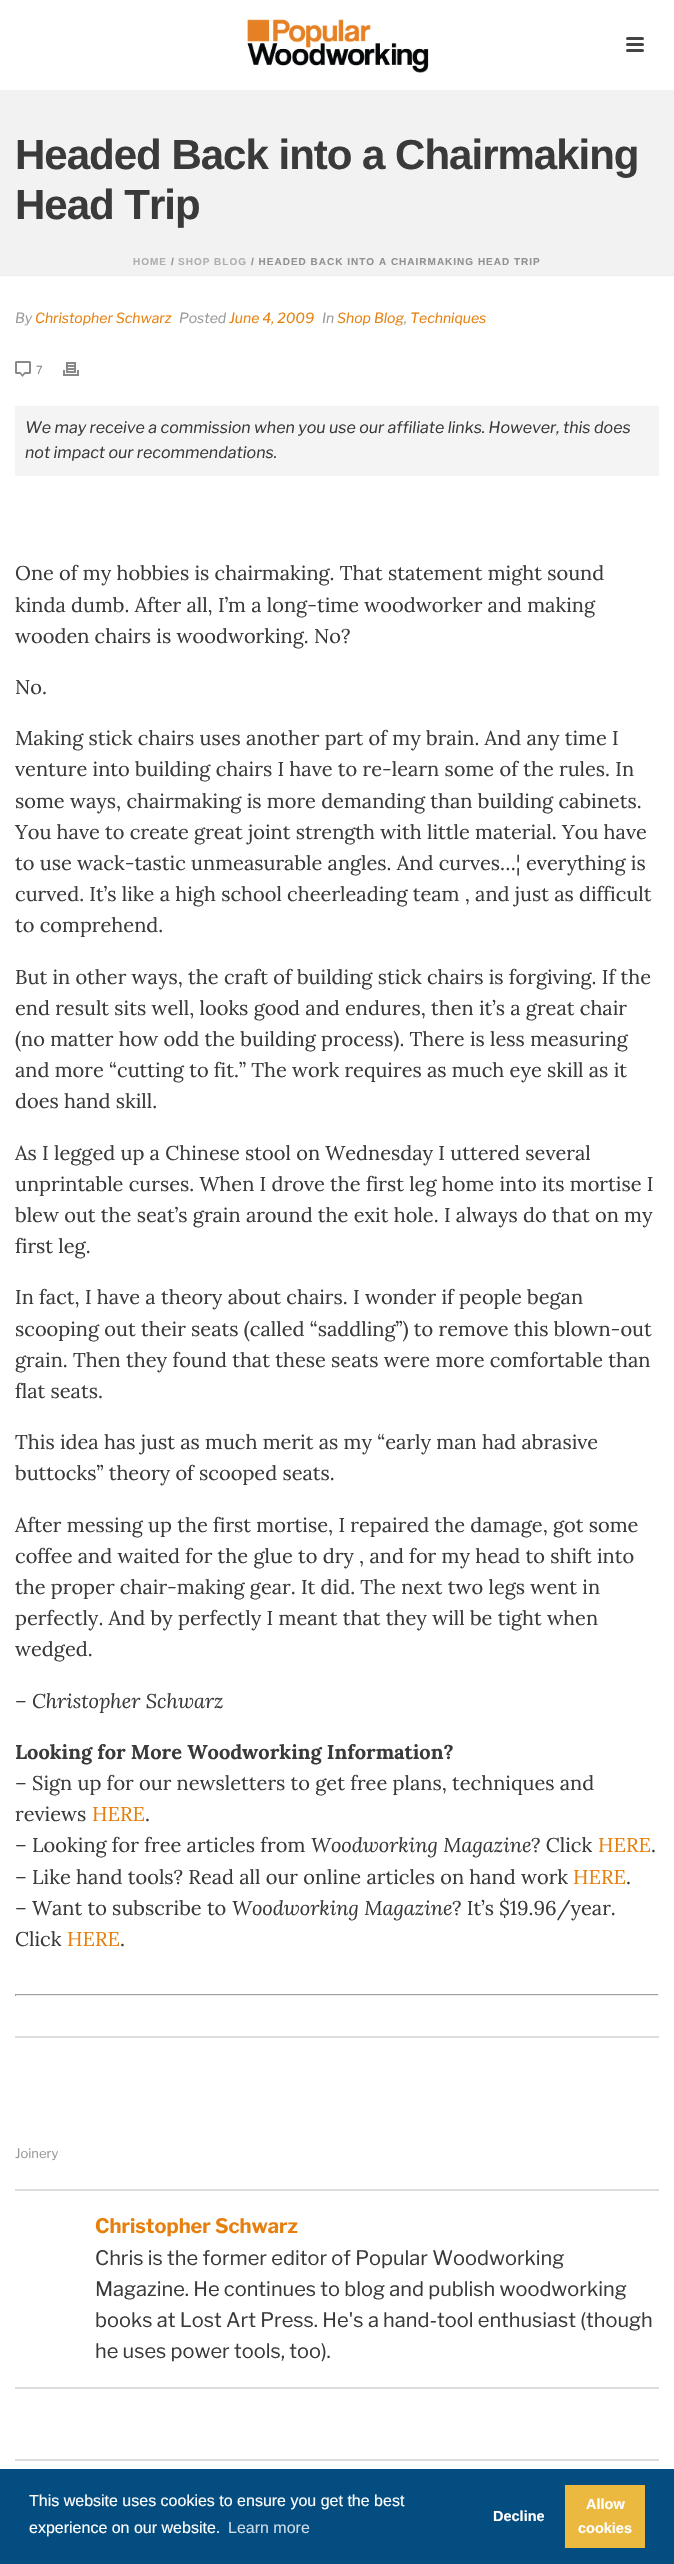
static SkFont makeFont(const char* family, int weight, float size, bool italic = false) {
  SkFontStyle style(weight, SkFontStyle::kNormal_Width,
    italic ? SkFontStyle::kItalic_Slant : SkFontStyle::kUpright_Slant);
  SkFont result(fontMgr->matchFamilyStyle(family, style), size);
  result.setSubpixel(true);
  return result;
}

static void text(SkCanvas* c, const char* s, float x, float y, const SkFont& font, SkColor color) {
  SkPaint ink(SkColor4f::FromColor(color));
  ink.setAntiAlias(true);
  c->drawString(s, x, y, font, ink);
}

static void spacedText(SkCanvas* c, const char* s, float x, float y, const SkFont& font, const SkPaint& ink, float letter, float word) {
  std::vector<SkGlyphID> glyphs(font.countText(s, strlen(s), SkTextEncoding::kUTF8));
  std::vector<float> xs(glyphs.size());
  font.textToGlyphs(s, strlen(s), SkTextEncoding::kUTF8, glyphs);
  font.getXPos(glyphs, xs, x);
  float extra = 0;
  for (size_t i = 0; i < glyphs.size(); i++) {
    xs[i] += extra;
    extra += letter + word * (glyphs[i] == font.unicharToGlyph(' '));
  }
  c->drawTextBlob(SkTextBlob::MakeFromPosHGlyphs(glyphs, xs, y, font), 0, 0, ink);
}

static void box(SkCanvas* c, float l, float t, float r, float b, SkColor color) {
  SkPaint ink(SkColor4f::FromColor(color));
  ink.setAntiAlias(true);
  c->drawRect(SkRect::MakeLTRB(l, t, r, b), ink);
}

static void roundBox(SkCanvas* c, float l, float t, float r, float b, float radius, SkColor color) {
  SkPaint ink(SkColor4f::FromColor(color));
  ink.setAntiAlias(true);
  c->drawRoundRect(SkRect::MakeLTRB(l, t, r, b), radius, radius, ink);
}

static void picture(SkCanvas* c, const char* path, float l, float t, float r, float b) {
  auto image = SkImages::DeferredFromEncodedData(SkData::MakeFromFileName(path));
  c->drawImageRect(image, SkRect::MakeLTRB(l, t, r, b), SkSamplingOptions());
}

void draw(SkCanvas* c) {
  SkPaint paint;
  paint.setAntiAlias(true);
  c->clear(0xffffffff);
  box(c, 0, 275, 674, 276, 0xffededed);
  picture(c, "img_01.png", 247, 19, 429, 73);
  roundBox(c, 626, 37, 644, 40, 1.5f, 0xff444444);
  roundBox(c, 626, 43, 644, 46, 1.5f, 0xff444444);
  roundBox(c, 626, 49, 644, 52, 1.5f, 0xff444444);
  box(c, 0, 90, 674, 275, 0xfff2f2f2);
  SkFont face1 = makeFont("Liberation Sans", 700, 42);
  paint.setColor(0xff3a3a3a);
  spacedText(c, "Headed Back into a Chairmaking", 15, 169, face1, paint, -1, 0);
  spacedText(c, "Head Trip", 15, 219, face1, paint, -1, 0);
  SkFont face2 = makeFont("Liberation Sans", 700, 10);
  paint.setColor(0xffafafaf);
  spacedText(c, "HOME", 133, 265, face2, paint, 1, 0);
  paint.setColor(0xff919191);
  spacedText(c, "/", 171, 265, face2, paint, 1, 0);
  paint.setColor(0xffafafaf);
  spacedText(c, "SHOP BLOG", 178, 265, face2, paint, 1, 0);
  paint.setColor(0xff919191);
  spacedText(c, "/ HEADED BACK INTO A CHAIRMAKING HEAD TRIP", 251, 265, face2, paint, 1, 0);
  SkFont face3 = makeFont("Libre Franklin", 400, 14, true);
  text(c, "By", 15, 323, face3, 0xff999999);
  text(c, "Christopher Schwarz", 35, 323, face3, 0xffe67f0d);
  text(c, "Posted", 179, 323, face3, 0xff999999);
  text(c, "June 4, 2009", 229, 323, face3, 0xffe67f0d);
  text(c, "In", 322, 323, face3, 0xff999999);
  text(c, "Shop Blog", 337, 323, face3, 0xffe67f0d);
  text(c, ",", 404, 323, face3, 0xff999999);
  text(c, "Techniques", 410, 323, face3, 0xffe67f0d);
  picture(c, "img_02.png", 15, 361, 31, 377);
  SkFont face4 = makeFont("Libre Franklin", 400, 11);
  text(c, "7", 36, 374, face4, 0xff898989);
  picture(c, "img_03.png", 63, 362, 79, 376);
  box(c, 15, 406, 659, 476, 0xfff4f4f4);
  SkFont face5 = makeFont("Libre Franklin", 400, 16, true);
  text(c, "We may receive a commission when you use our affiliate links. However, this does", 25, 433, face5, 0xff3a3a3a);
  text(c, "not impact our recommendations.", 25, 458, face5, 0xff3a3a3a);
  SkFont face6 = makeFont("Lora", 400, 20);
  text(c, "One of my hobbies is chairmaking. That statement might sound", 15, 580, face6, 0xff3a3a3a);
  text(c, "kinda dumb. After all, I’m a long-time woodworker and making", 15, 612, face6, 0xff3a3a3a);
  text(c, "wooden chairs is woodworking. No?", 15, 643, face6, 0xff3a3a3a);
  text(c, "No.", 15, 694, face6, 0xff3a3a3a);
  text(c, "Making stick chairs uses another part of my brain. And any time I", 15, 745, face6, 0xff3a3a3a);
  text(c, "venture into building chairs I have to re-learn some of the rules. In", 15, 776, face6, 0xff3a3a3a);
  text(c, "some ways, chairmaking is more demanding than building cabinets.", 15, 808, face6, 0xff3a3a3a);
  text(c, "You have to create great joint strength with little material. You have", 15, 839, face6, 0xff3a3a3a);
  text(c, "to use wack-tastic unmeasurable angles. And curves…¦ everything is", 15, 870, face6, 0xff3a3a3a);
  text(c, "curved. It’s like a high school cheerleading team , and just as difficult", 15, 901, face6, 0xff3a3a3a);
  text(c, "to comprehend.", 15, 932, face6, 0xff3a3a3a);
  text(c, "But in other ways, the craft of building stick chairs is forgiving. If the", 15, 984, face6, 0xff3a3a3a);
  text(c, "end result sits well, looks good and endures, then it’s a great chair", 15, 1015, face6, 0xff3a3a3a);
  text(c, "(no matter how odd the building process). There is less measuring", 15, 1046, face6, 0xff3a3a3a);
  text(c, "and more “cutting to fit.” The work requires as much eye skill as it", 15, 1077, face6, 0xff3a3a3a);
  text(c, "does hand skill.", 15, 1108, face6, 0xff3a3a3a);
  text(c, "As I legged up a Chinese stool on Wednesday I uttered several", 15, 1160, face6, 0xff3a3a3a);
  text(c, "unprintable curses. When I drove the first leg home into its mortise I", 15, 1191, face6, 0xff3a3a3a);
  text(c, "blew out the seat’s grain around the exit hole. I always do that on my", 15, 1222, face6, 0xff3a3a3a);
  text(c, "first leg.", 15, 1253, face6, 0xff3a3a3a);
  text(c, "In fact, I have a theory about chairs. I wonder if people began", 15, 1304, face6, 0xff3a3a3a);
  text(c, "scooping out their seats (called “saddling”) to remove this blown-out", 15, 1336, face6, 0xff3a3a3a);
  text(c, "grain. Then they found that these seats were more comfortable than", 15, 1367, face6, 0xff3a3a3a);
  text(c, "flat seats.", 15, 1398, face6, 0xff3a3a3a);
  text(c, "This idea has just as much merit as my “early man had abrasive", 15, 1449, face6, 0xff3a3a3a);
  text(c, "buttocks” theory of scooped seats.", 15, 1480, face6, 0xff3a3a3a);
  text(c, "After messing up the first mortise, I repaired the damage, got some", 15, 1532, face6, 0xff3a3a3a);
  text(c, "coffee and waited for the glue to dry , and for my head to shift into", 15, 1563, face6, 0xff3a3a3a);
  text(c, "the proper chair-making gear. It did. The next two legs went in", 15, 1594, face6, 0xff3a3a3a);
  text(c, "perfectly. And by perfectly I meant that they will be tight when", 15, 1625, face6, 0xff3a3a3a);
  text(c, "wedged.", 15, 1656, face6, 0xff3a3a3a);
  SkFont face7 = makeFont("Lora", 400, 20, true);
  text(c, "– Christopher Schwarz", 15, 1708, face7, 0xff3a3a3a);
  SkFont face8 = makeFont("Lora", 700, 20);
  text(c, "Looking for More Woodworking Information?", 15, 1759, face8, 0xff3a3a3a);
  text(c, "– Sign up for our newsletters to get free plans, techniques and", 15, 1790, face6, 0xff3a3a3a);
  text(c, "reviews", 15, 1821, face6, 0xff3a3a3a);
  text(c, "HERE", 92, 1821, face6, 0xffe67f0d);
  text(c, ".", 145, 1821, face6, 0xff3a3a3a);
  text(c, "– Looking for free articles from", 15, 1852, face6, 0xff3a3a3a);
  text(c, "Woodworking Magazine", 311, 1852, face7, 0xff3a3a3a);
  text(c, "? Click", 531, 1852, face6, 0xff3a3a3a);
  text(c, "HERE", 598, 1852, face6, 0xffe67f0d);
  text(c, ".", 651, 1852, face6, 0xff3a3a3a);
  text(c, "– Like hand tools? Read all our online articles on hand work", 15, 1884, face6, 0xff3a3a3a);
  text(c, "HERE", 573, 1884, face6, 0xffe67f0d);
  text(c, ".", 626, 1884, face6, 0xff3a3a3a);
  text(c, "– Want to subscribe to", 15, 1915, face6, 0xff3a3a3a);
  text(c, "Woodworking Magazine", 232, 1915, face7, 0xff3a3a3a);
  text(c, "? It’s $19.96/year.", 452, 1915, face6, 0xff3a3a3a);
  text(c, "Click", 15, 1946, face6, 0xff3a3a3a);
  text(c, "HERE", 67, 1946, face6, 0xffe67f0d);
  text(c, ".", 120, 1946, face6, 0xff3a3a3a);
  box(c, 15, 1994, 659, 1995, 0xff9f9f9f);
  box(c, 658, 1994, 659, 1996, 0xffeeeeee);
  box(c, 15, 1995, 659, 1996, 0xffeeeeee);
  box(c, 15, 1994, 16, 1996, 0xff9f9f9f);
  box(c, 15, 2036, 659, 2038, 0xffdddddd);
  SkFont face9 = makeFont("Libre Franklin", 400, 13);
  text(c, "Joinery", 15, 2158, face9, 0xff999999);
  box(c, 15, 2189, 659, 2191, 0xffdddddd);
  box(c, 15, 2387, 659, 2389, 0xffdddddd);
  SkFont face10 = makeFont("Libre Franklin", 700, 20);
  text(c, "Christopher Schwarz", 95, 2233, face10, 0xffe67f0d);
  SkFont face11 = makeFont("Libre Franklin", 400, 20);
  text(c, "Chris is the former editor of Popular Woodworking", 95, 2265, face11, 0xff3a3a3a);
  text(c, "Magazine. He continues to blog and publish woodworking", 95, 2296, face11, 0xff3a3a3a);
  text(c, "books at Lost Art Press. He's a hand-tool enthusiast (though", 95, 2327, face11, 0xff3a3a3a);
  text(c, "he uses power tools, too).", 95, 2358, face11, 0xff3a3a3a);
  box(c, 15, 2459, 659, 2461, 0xffdddddd);
  box(c, 0, 2469, 674, 2564, 0xff044d80);
  SkFont face12 = makeFont("Liberation Sans", 400, 16);
  text(c, "This website uses cookies to ensure you get the best", 29, 2506, face12, 0xffffffff);
  text(c, "experience on our website.", 29, 2533, face12, 0xffffffff);
  text(c, "Learn more", 228, 2533, face12, 0xffcddbe6);
  SkFont face13 = makeFont("Liberation Sans", 700, 14.5f);
  text(c, "Decline", 493, 2521, face13, 0xffffffff);
  box(c, 565, 2485, 645, 2548, 0xffecb940);
  text(c, "Allow", 586, 2509, face13, 0xffffffff);
  text(c, "cookies", 578, 2533, face13, 0xffffffff);
}
